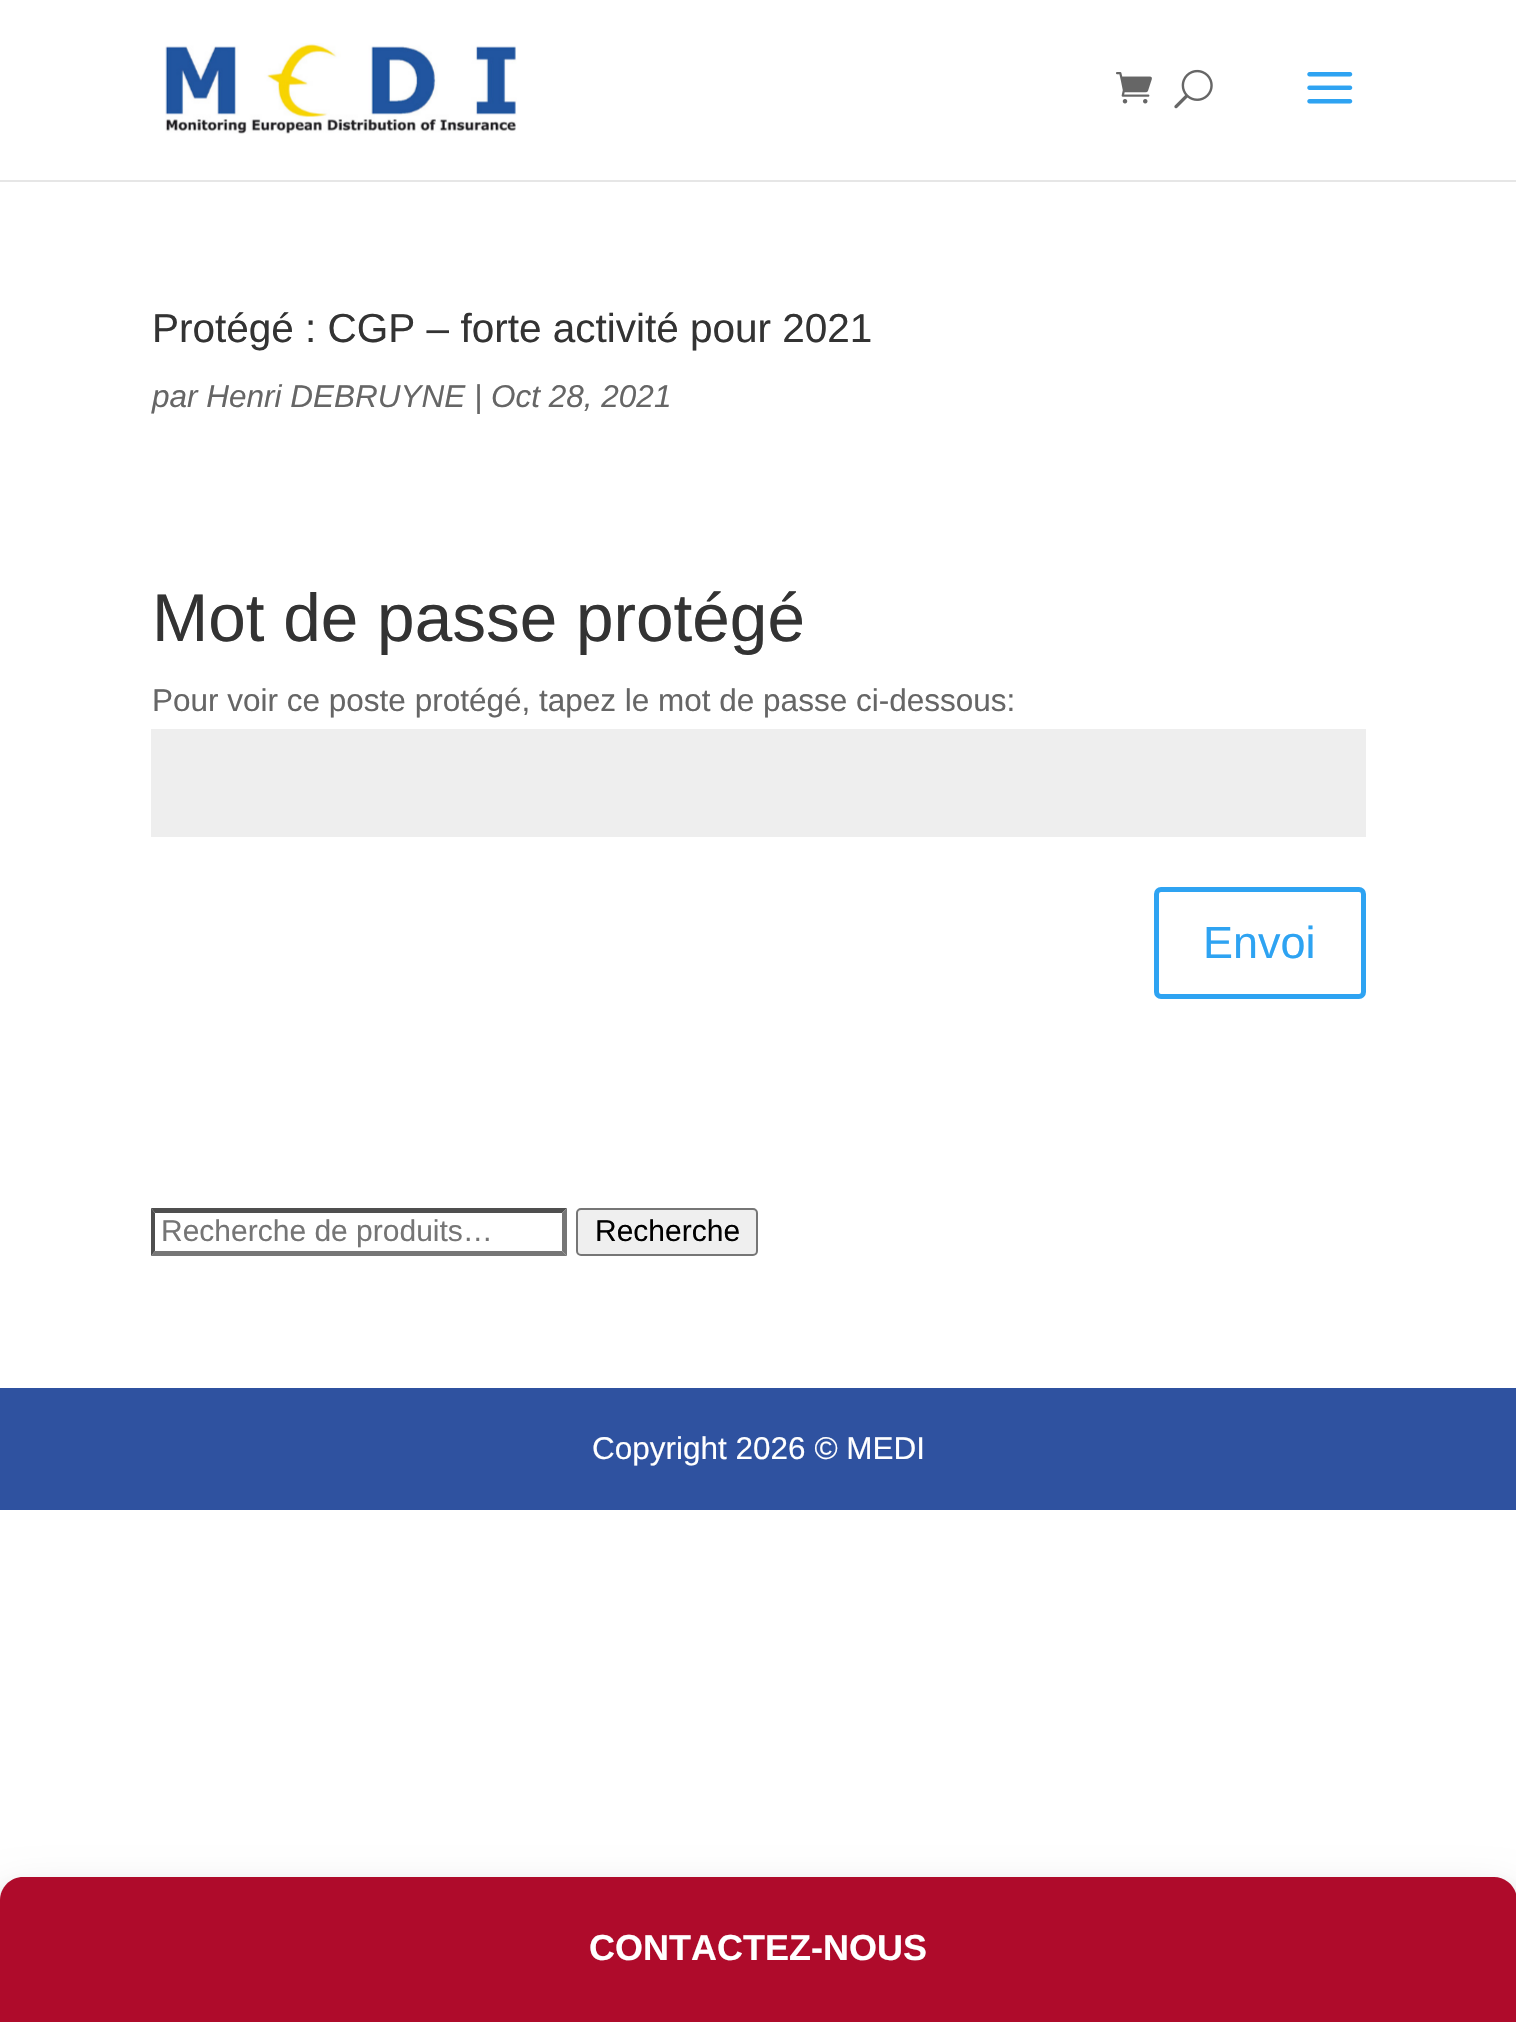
static SkFont makeFont(const char* family, int weight, float size, bool italic = false) {
  SkFontStyle style(weight, SkFontStyle::kNormal_Width,
    italic ? SkFontStyle::kItalic_Slant : SkFontStyle::kUpright_Slant);
  SkFont result(fontMgr->matchFamilyStyle(family, style), size);
  result.setSubpixel(true);
  return result;
}

static void text(SkCanvas* c, const char* s, float x, float y, const SkFont& font, SkColor color) {
  SkPaint ink(SkColor4f::FromColor(color));
  ink.setAntiAlias(true);
  c->drawString(s, x, y, font, ink);
}

static void box(SkCanvas* c, float l, float t, float r, float b, SkColor color) {
  SkPaint ink(SkColor4f::FromColor(color));
  ink.setAntiAlias(true);
  c->drawRect(SkRect::MakeLTRB(l, t, r, b), ink);
}

static void picture(SkCanvas* c, const char* path, float l, float t, float r, float b) {
  auto image = SkImages::DeferredFromEncodedData(SkData::MakeFromFileName(path));
  c->drawImageRect(image, SkRect::MakeLTRB(l, t, r, b), SkSamplingOptions());
}

void draw(SkCanvas* c) {
  SkPaint paint;
  paint.setAntiAlias(true);
  c->clear(0xffffffff);
  paint.setColor(0xffe6e6e6);
  c->drawPath(SkPathBuilder().moveTo(0, 180).lineTo(0, 182).lineTo(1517, 182).lineTo(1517, 2).lineTo(1516, 2).lineTo(1516, 180).close().detach(), paint);
  picture(c, "img_01.png", 165, 43, 517, 134);
  picture(c, "img_02.png", 1116, 72, 1152, 104);
  picture(c, "img_03.png", 1174, 69, 1213, 109);
  picture(c, "img_04.png", 1307, 72, 1353, 104);
  SkFont face1 = makeFont("Liberation Sans", 400, 40.5f);
  text(c, "Protégé : CGP – forte activité pour 2021", 152, 342, face1, 0xff333333);
  SkFont face2 = makeFont("Liberation Sans", 400, 31.5f, true);
  text(c, "par Henri DEBRUYNE | Oct 28, 2021", 152, 407, face2, 0xff666666);
  SkFont face3 = makeFont("Liberation Sans", 400, 67.5f);
  text(c, "Mot de passe protégé", 152, 641, face3, 0xff333333);
  SkFont face4 = makeFont("Liberation Sans", 400, 31.5f);
  text(c, "Pour voir ce poste protégé, tapez le mot de passe ci-dessous:", 152, 711, face4, 0xff666666);
  box(c, 151, 729, 1366, 837, 0xffeeeeee);
  paint.setStyle(SkPaint::kStroke_Style);
  paint.setStrokeWidth(5);
  paint.setColor(0xff2ea3f2);
  c->drawRoundRect(SkRect::MakeLTRB(1156.5f, 889.5f, 1363.5f, 996.5f), 4.5f, 4.5f, paint);
  SkFont face5 = makeFont("Liberation Sans", 400, 45);
  text(c, "Envoi", 1203, 958, face5, 0xff2ea3f2);
  paint.setStyle(SkPaint::kFill_Style);
  paint.setColor(0xff4f4f4f);
  c->drawPath(SkPathBuilder().moveTo(151, 1208).lineTo(567, 1208).lineTo(562, 1213).lineTo(155, 1213).close().detach(), paint);
  paint.setColor(0xff767676);
  c->drawPath(SkPathBuilder().moveTo(567, 1208).lineTo(567, 1256).lineTo(562, 1251).lineTo(562, 1213).close().detach(), paint);
  c->drawPath(SkPathBuilder().moveTo(567, 1256).lineTo(151, 1256).lineTo(155, 1251).lineTo(562, 1251).close().detach(), paint);
  paint.setColor(0xff4f4f4f);
  c->drawPath(SkPathBuilder().moveTo(151, 1256).lineTo(151, 1208).lineTo(155, 1213).lineTo(155, 1251).close().detach(), paint);
  SkFont face6 = makeFont("Liberation Sans", 400, 30);
  text(c, "Recherche de produits…", 161, 1241, face6, 0xff757575);
  paint.setColor(0xffefefef);
  c->drawRoundRect(SkRect::MakeLTRB(577, 1209, 757, 1255), 4, 4, paint);
  paint.setStyle(SkPaint::kStroke_Style);
  paint.setStrokeWidth(2);
  paint.setColor(0xff767676);
  c->drawRoundRect(SkRect::MakeLTRB(577, 1209, 757, 1255), 4, 4, paint);
  text(c, "Recherche", 595, 1241, face6, 0xff000000);
  box(c, 0, 1388, 1516, 1510, 0xff2f52a0);
  text(c, "Copyright 2026 © MEDI", 592, 1459, face4, 0xffffffff);
  paint.setStyle(SkPaint::kFill_Style);
  paint.setColor(0x3b000000);
  paint.setMaskFilter(SkMaskFilter::MakeBlur(kNormal_SkBlurStyle, 7));
  c->drawRoundRect(SkRect::MakeLTRB(0, 1890, 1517, 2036), 23, 23, paint);
  paint.setMaskFilter(nullptr);
  paint.setColor(0x30000000);
  paint.setMaskFilter(SkMaskFilter::MakeBlur(kNormal_SkBlurStyle, 22.5f));
  c->drawRoundRect(SkRect::MakeLTRB(0, 1899, 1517, 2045), 23, 23, paint);
  paint.setMaskFilter(nullptr);
  paint.setColor(0xffaf0b2b);
  c->drawPath(SkPathBuilder().moveTo(23, 1877).lineTo(1494, 1877).cubicTo(1506.5f, 1877, 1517, 1887.5f, 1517, 1900).lineTo(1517, 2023).lineTo(0, 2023).lineTo(0, 1900).cubicTo(0, 1887.5f, 10.5f, 1877, 23, 1877).close().detach(), paint);
  SkFont face7 = makeFont("Liberation Sans", 700, 36);
  text(c, "CONTACTEZ-NOUS", 589, 1960, face7, 0xffffffff);
}
